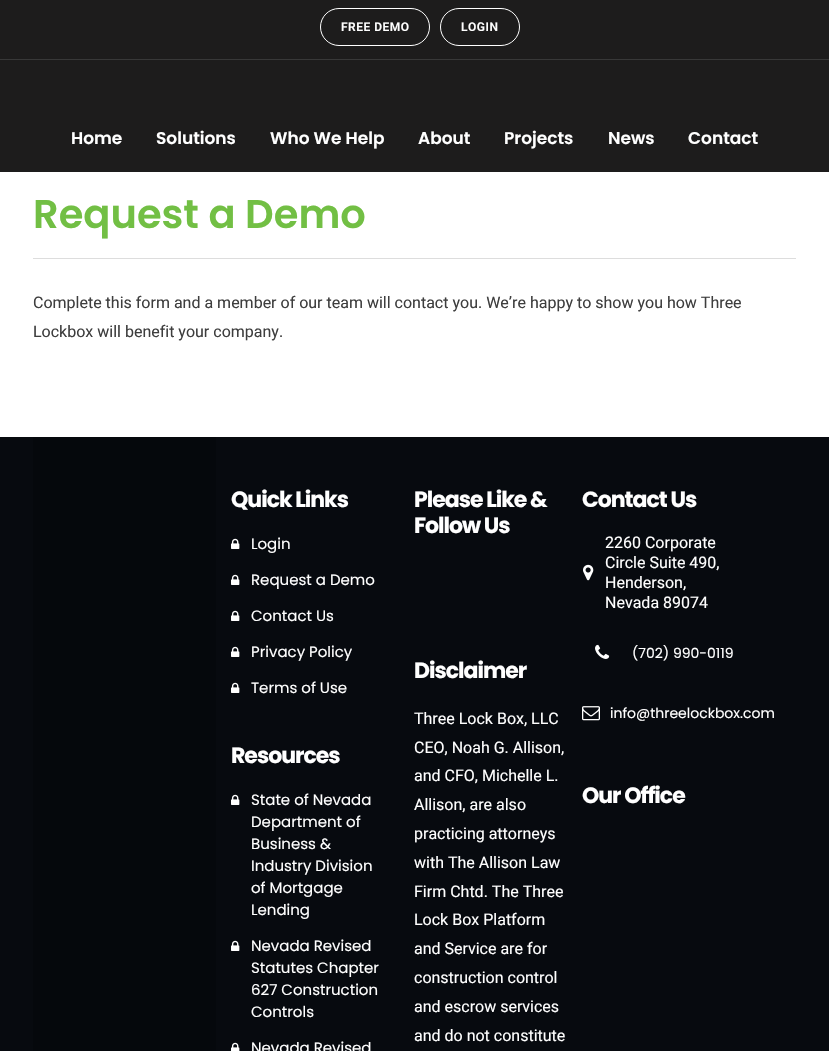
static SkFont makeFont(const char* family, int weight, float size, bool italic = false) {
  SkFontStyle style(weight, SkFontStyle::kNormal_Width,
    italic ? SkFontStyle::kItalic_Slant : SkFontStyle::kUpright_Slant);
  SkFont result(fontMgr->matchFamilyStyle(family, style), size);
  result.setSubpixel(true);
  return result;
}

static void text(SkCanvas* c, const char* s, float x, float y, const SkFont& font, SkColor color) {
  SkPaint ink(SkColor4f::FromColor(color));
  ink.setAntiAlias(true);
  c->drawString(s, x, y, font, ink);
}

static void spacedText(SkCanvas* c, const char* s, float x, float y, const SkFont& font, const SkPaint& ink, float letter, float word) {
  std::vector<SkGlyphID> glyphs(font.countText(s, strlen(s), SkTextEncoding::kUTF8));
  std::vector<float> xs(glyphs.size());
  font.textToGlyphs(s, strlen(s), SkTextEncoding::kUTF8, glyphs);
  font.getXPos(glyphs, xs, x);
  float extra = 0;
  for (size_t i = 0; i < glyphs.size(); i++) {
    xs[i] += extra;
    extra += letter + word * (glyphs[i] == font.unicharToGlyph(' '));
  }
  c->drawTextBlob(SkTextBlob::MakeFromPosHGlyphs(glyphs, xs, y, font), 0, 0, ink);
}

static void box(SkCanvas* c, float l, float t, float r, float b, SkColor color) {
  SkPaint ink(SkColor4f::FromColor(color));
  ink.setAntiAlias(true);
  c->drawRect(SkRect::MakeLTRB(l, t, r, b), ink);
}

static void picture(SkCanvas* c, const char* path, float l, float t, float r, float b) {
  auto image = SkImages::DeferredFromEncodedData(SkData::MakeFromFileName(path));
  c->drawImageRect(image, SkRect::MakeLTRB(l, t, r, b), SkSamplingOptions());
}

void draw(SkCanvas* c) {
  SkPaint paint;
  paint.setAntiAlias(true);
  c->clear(0xffffffff);
  box(c, 0, 0, 829, 59, 0xff1d1c1c);
  box(c, 0, 59, 829, 60, 0xff383838);
  paint.setStyle(SkPaint::kStroke_Style);
  paint.setStrokeWidth(1);
  paint.setColor(0xffffffff);
  c->drawRoundRect(SkRect::MakeLTRB(320.5f, 8.5f, 429.5f, 45.5f), 18.5f, 18.5f, paint);
  SkFont face1 = makeFont("Roboto", 600, 12);
  paint.setStyle(SkPaint::kFill_Style);
  spacedText(c, "FREE DEMO", 341, 31, face1, paint, 0.5f, 0);
  paint.setStyle(SkPaint::kStroke_Style);
  c->drawRoundRect(SkRect::MakeLTRB(440.5f, 8.5f, 519.5f, 45.5f), 18.5f, 18.5f, paint);
  paint.setStyle(SkPaint::kFill_Style);
  spacedText(c, "LOGIN", 461, 31, face1, paint, 0.5f, 0);
  box(c, 0, 60, 829, 172, 0xff1d1c1c);
  SkFont face2 = makeFont("Poppins", 600, 17);
  text(c, "Home", 71, 144, face2, 0xffffffff);
  text(c, "Solutions", 156, 144, face2, 0xffffffff);
  text(c, "Who We Help", 270, 144, face2, 0xffffffff);
  text(c, "About", 418, 144, face2, 0xffffffff);
  text(c, "Projects", 504, 144, face2, 0xffffffff);
  text(c, "News", 608, 144, face2, 0xffffffff);
  text(c, "Contact", 688, 144, face2, 0xffffffff);
  box(c, 33, 258, 796, 259, 0xffdddddd);
  SkFont face3 = makeFont("Poppins", 600, 40);
  text(c, "Request a Demo", 33, 228, face3, 0xff72bf44);
  SkFont face4 = makeFont("Roboto", 400, 16);
  text(c, "Complete this form and a member of our team will contact you. We’re happy to show you how Three", 33, 308, face4, 0xff3e3e3e);
  text(c, "Lockbox will benefit your company.", 33, 337, face4, 0xff3e3e3e);
  box(c, 0, 437, 829, 1051, 0xff070a0f);
  box(c, 33, 437, 216, 1051, 0xff05080c);
  SkFont face5 = makeFont("Poppins", 700, 22);
  spacedText(c, "Quick Links", 231, 507, face5, paint, -1, 0);
  picture(c, "img_01.png", 231, 538, 240, 549);
  SkFont face6 = makeFont("Poppins", 400, 15);
  text(c, "Login", 251, 549, face6, 0xffffffff);
  picture(c, "img_01.png", 231, 574, 240, 585);
  text(c, "Request a Demo", 251, 585, face6, 0xffffffff);
  picture(c, "img_01.png", 231, 610, 240, 621);
  text(c, "Contact Us", 251, 621, face6, 0xffffffff);
  picture(c, "img_01.png", 231, 646, 240, 657);
  text(c, "Privacy Policy", 251, 657, face6, 0xffffffff);
  picture(c, "img_01.png", 231, 682, 240, 693);
  text(c, "Terms of Use", 251, 693, face6, 0xffffffff);
  spacedText(c, "Resources", 231, 763, face5, paint, -1, 0);
  picture(c, "img_01.png", 231, 794, 240, 805);
  text(c, "State of Nevada", 251, 805, face6, 0xffffffff);
  text(c, "Department of", 251, 827, face6, 0xffffffff);
  text(c, "Business &", 251, 849, face6, 0xffffffff);
  text(c, "Industry Division", 251, 871, face6, 0xffffffff);
  text(c, "of Mortgage", 251, 893, face6, 0xffffffff);
  text(c, "Lending", 251, 915, face6, 0xffffffff);
  picture(c, "img_01.png", 231, 940, 240, 951);
  text(c, "Nevada Revised", 251, 951, face6, 0xffffffff);
  text(c, "Statutes Chapter", 251, 973, face6, 0xffffffff);
  text(c, "627 Construction", 251, 995, face6, 0xffffffff);
  text(c, "Controls", 251, 1017, face6, 0xffffffff);
  picture(c, "img_02.png", 231, 1042, 240, 1051);
  text(c, "Nevada Revised", 251, 1053, face6, 0xffffffff);
  spacedText(c, "Please Like &", 414, 507, face5, paint, -1, 0);
  spacedText(c, "Follow Us", 414, 533, face5, paint, -1, 0);
  spacedText(c, "Disclaimer", 414, 678, face5, paint, -1, 0);
  text(c, "Three Lock Box, LLC", 414, 724, face4, 0xffffffff);
  text(c, "CEO, Noah G. Allison,", 414, 753, face4, 0xffffffff);
  text(c, "and CFO, Michelle L.", 414, 781, face4, 0xffffffff);
  text(c, "Allison, are also", 414, 810, face4, 0xffffffff);
  text(c, "practicing attorneys", 414, 839, face4, 0xffffffff);
  text(c, "with The Allison Law", 414, 868, face4, 0xffffffff);
  text(c, "Firm Chtd. The Three", 414, 897, face4, 0xffffffff);
  text(c, "Lock Box Platform", 414, 925, face4, 0xffffffff);
  text(c, "and Service are for", 414, 954, face4, 0xffffffff);
  text(c, "construction control", 414, 983, face4, 0xffffffff);
  text(c, "and escrow services", 414, 1012, face4, 0xffffffff);
  text(c, "and do not constitute", 414, 1041, face4, 0xffffffff);
  spacedText(c, "Contact Us", 582, 507, face5, paint, -1, 0);
  picture(c, "img_03.png", 583, 564, 594, 581);
  text(c, "2260 Corporate", 605, 548, face4, 0xffffffff);
  text(c, "Circle Suite 490,", 605, 568, face4, 0xffffffff);
  text(c, "Henderson,", 605, 588, face4, 0xffffffff);
  text(c, "Nevada 89074", 605, 608, face4, 0xffffffff);
  picture(c, "img_04.png", 595, 644, 610, 659);
  SkFont face7 = makeFont("Poppins", 400, 14);
  text(c, "(702) 990-0119", 632, 658, face7, 0xffffffff);
  picture(c, "img_05.png", 582, 706, 600, 721);
  text(c, "info@threelockbox.com", 610, 718, face7, 0xffffffff);
  spacedText(c, "Our Office", 582, 803, face5, paint, -1, 0);
}
